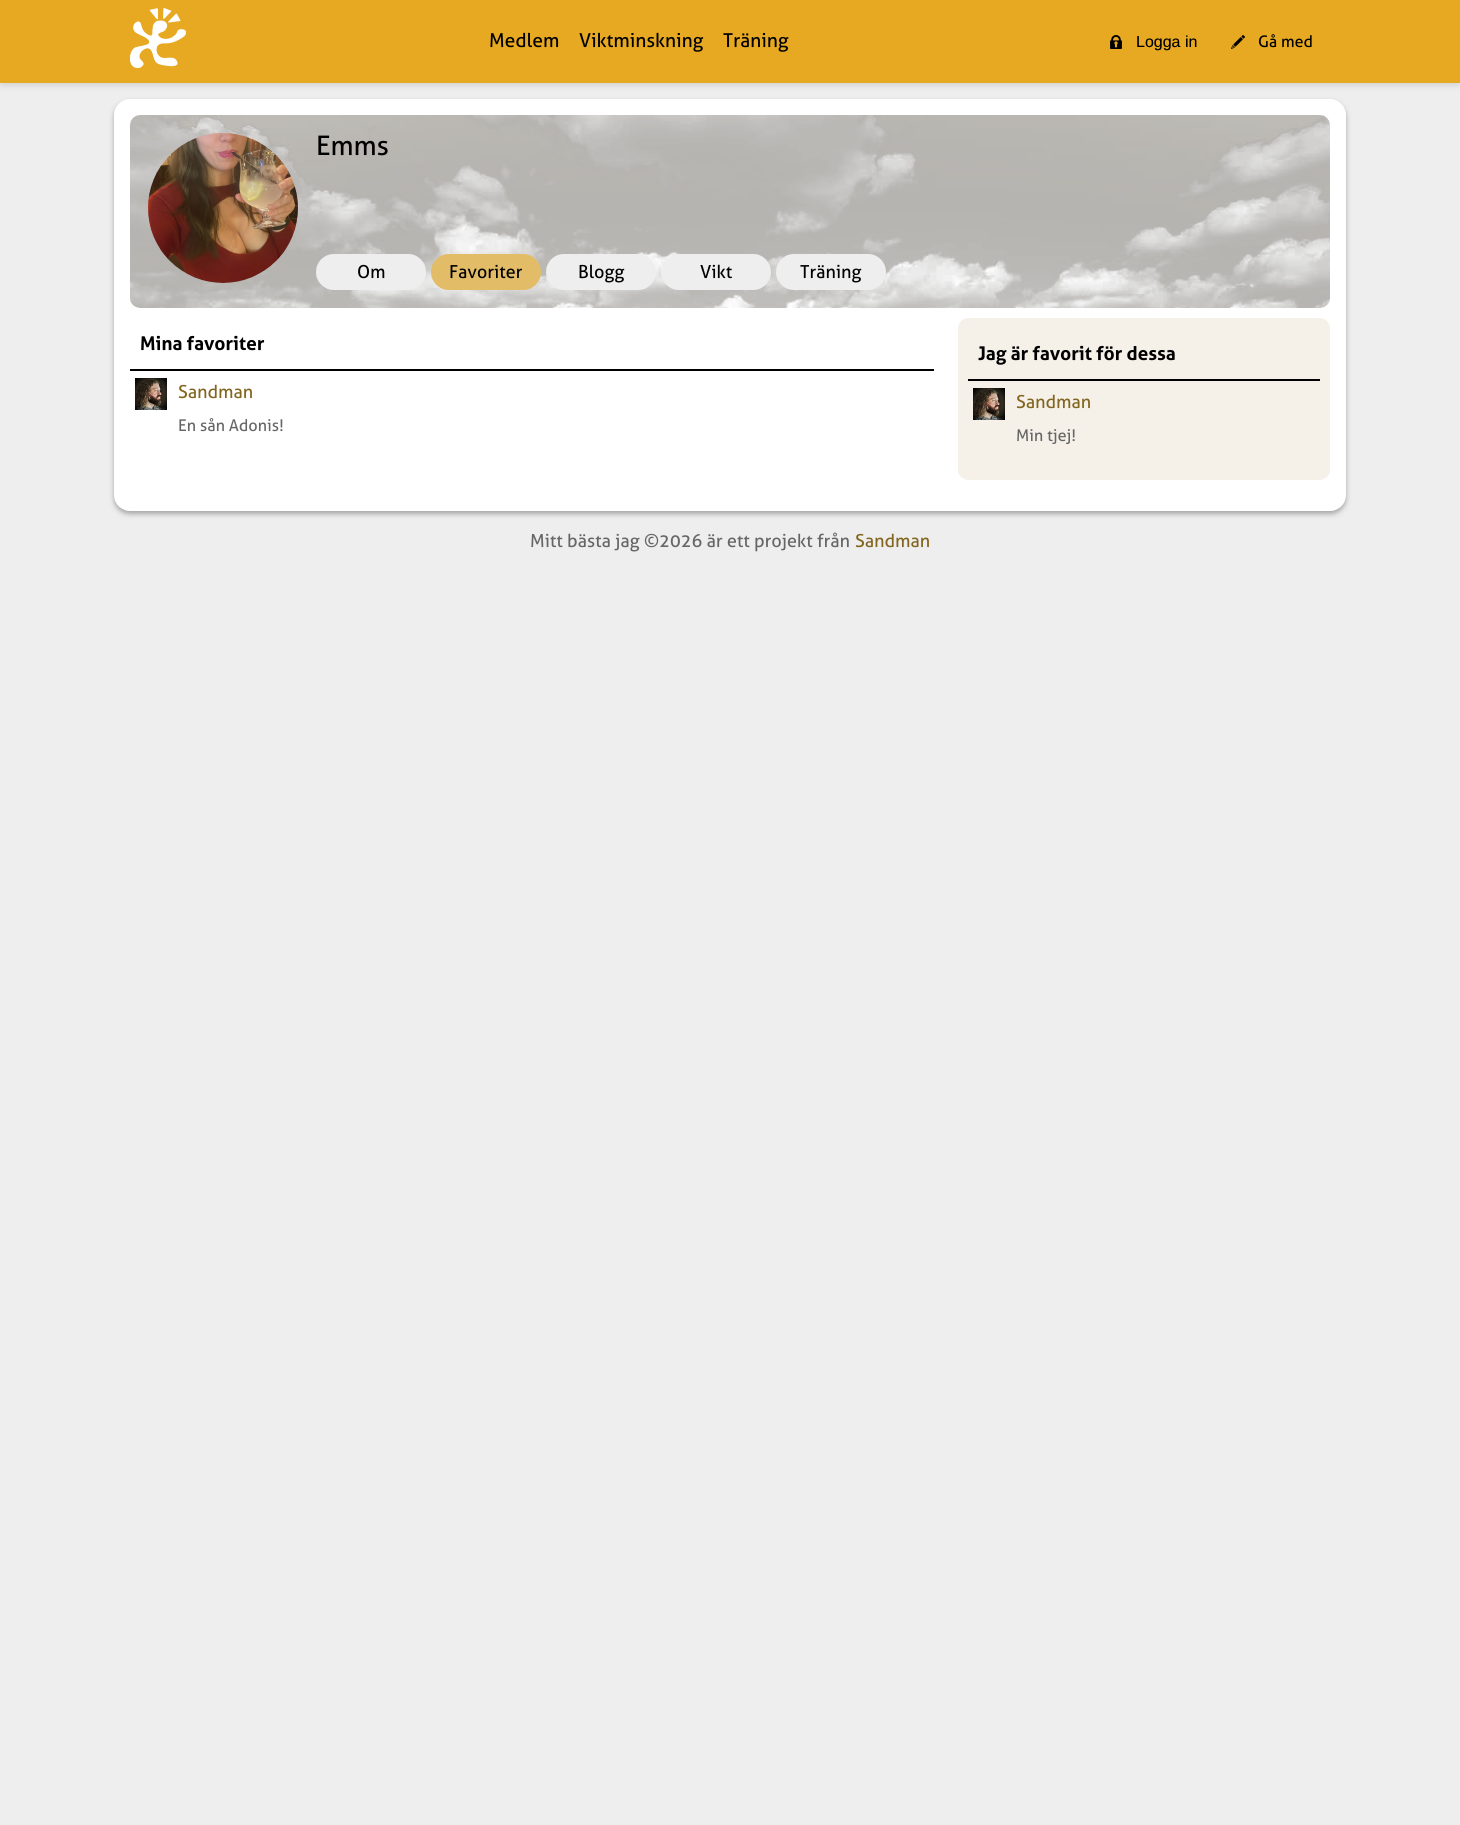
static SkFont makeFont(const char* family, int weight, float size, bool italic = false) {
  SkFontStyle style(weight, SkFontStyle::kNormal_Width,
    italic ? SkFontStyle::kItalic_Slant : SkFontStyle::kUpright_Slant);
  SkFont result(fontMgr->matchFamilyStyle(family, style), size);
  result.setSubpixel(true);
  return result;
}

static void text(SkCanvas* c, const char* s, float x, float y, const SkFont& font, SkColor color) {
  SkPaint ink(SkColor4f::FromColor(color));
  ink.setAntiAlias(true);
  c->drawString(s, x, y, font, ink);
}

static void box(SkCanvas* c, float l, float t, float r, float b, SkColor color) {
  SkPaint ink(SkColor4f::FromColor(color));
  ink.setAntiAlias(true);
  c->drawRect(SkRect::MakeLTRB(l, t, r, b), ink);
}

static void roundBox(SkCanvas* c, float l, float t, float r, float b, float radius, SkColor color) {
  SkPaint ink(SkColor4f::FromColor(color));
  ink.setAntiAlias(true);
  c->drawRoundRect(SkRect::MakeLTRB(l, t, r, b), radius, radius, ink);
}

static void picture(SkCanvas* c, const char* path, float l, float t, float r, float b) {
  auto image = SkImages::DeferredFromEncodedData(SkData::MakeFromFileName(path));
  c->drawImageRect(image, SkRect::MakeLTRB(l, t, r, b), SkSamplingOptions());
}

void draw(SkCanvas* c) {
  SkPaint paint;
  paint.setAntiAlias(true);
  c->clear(0xffeeeeee);
  paint.setColor(0x1a000000);
  paint.setMaskFilter(SkMaskFilter::MakeBlur(kNormal_SkBlurStyle, 2.5f));
  c->drawRect(SkRect::MakeLTRB(0, 3, 1460, 86), paint);
  paint.setMaskFilter(nullptr);
  box(c, 0, 0, 1460, 83, 0xffe7a921);
  picture(c, "img_01.png", 130, 8, 186, 68);
  picture(c, "img_02.png", 490, 32, 559, 48);
  picture(c, "img_03.png", 579, 32, 704, 52);
  picture(c, "img_04.png", 723, 33, 789, 52);
  picture(c, "img_05.png", 1110, 35, 1122, 49);
  SkFont face1 = makeFont("Liberation Sans", 400, 16);
  text(c, "Logga in", 1136, 47, face1, 0xff000000);
  picture(c, "img_06.png", 1231, 35, 1245, 49);
  picture(c, "img_07.png", 1258, 34, 1312, 48);
  paint.setColor(0x4d000000);
  paint.setMaskFilter(SkMaskFilter::MakeBlur(kNormal_SkBlurStyle, 2.5f));
  c->drawRoundRect(SkRect::MakeLTRB(114, 102, 1346, 514), 16, 16, paint);
  paint.setMaskFilter(nullptr);
  roundBox(c, 114, 99, 1346, 511, 16, 0xffffffff);
  roundBox(c, 130, 115, 1330, 308, 10, 0xfff5f1e9);
  picture(c, "img_08.png", 130, 115, 1330, 308);
  picture(c, "img_09.png", 148, 133, 298, 283);
  picture(c, "img_10.png", 318, 135, 388, 156);
  roundBox(c, 316, 254, 426, 290, 18, 0xffeeeeee);
  picture(c, "img_11.png", 358, 264, 385, 279);
  roundBox(c, 431, 254, 541, 290, 18, 0xffe3bc68);
  picture(c, "img_12.png", 450, 264, 522, 279);
  roundBox(c, 546, 254, 656, 290, 18, 0xffeeeeee);
  picture(c, "img_13.png", 579, 264, 625, 283);
  roundBox(c, 661, 254, 771, 290, 18, 0xffeeeeee);
  picture(c, "img_14.png", 700, 264, 732, 279);
  roundBox(c, 776, 254, 886, 290, 18, 0xffeeeeee);
  picture(c, "img_15.png", 800, 264, 862, 283);
  box(c, 130, 369, 934, 371, 0xff000000);
  picture(c, "img_16.png", 141, 335, 265, 351);
  picture(c, "img_17.png", 135, 378, 167, 410);
  picture(c, "img_18.png", 178, 384, 252, 399);
  picture(c, "img_19.png", 179, 418, 283, 432);
  roundBox(c, 958, 318, 1330, 480, 10, 0xfff5f1e9);
  box(c, 968, 379, 1320, 381, 0xff000000);
  picture(c, "img_20.png", 978, 345, 1175, 365);
  picture(c, "img_17.png", 973, 388, 1005, 420);
  picture(c, "img_21.png", 1016, 394, 1090, 409);
  picture(c, "img_22.png", 1017, 429, 1075, 444);
  picture(c, "img_23.png", 531, 532, 849, 552);
  picture(c, "img_24.png", 855, 533, 929, 548);
}
